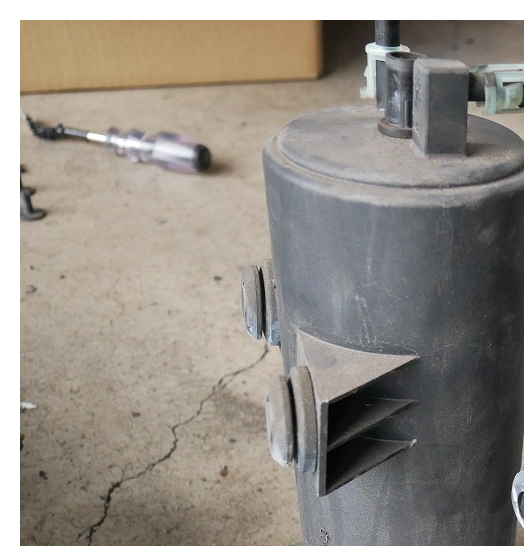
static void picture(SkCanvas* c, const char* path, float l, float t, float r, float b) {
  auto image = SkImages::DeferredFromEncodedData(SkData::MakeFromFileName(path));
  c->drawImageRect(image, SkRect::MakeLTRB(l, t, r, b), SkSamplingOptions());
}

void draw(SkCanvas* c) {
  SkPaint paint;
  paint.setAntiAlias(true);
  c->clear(0xffffffff);
  picture(c, "img_01.png", 20, 20, 524, 546);
}
